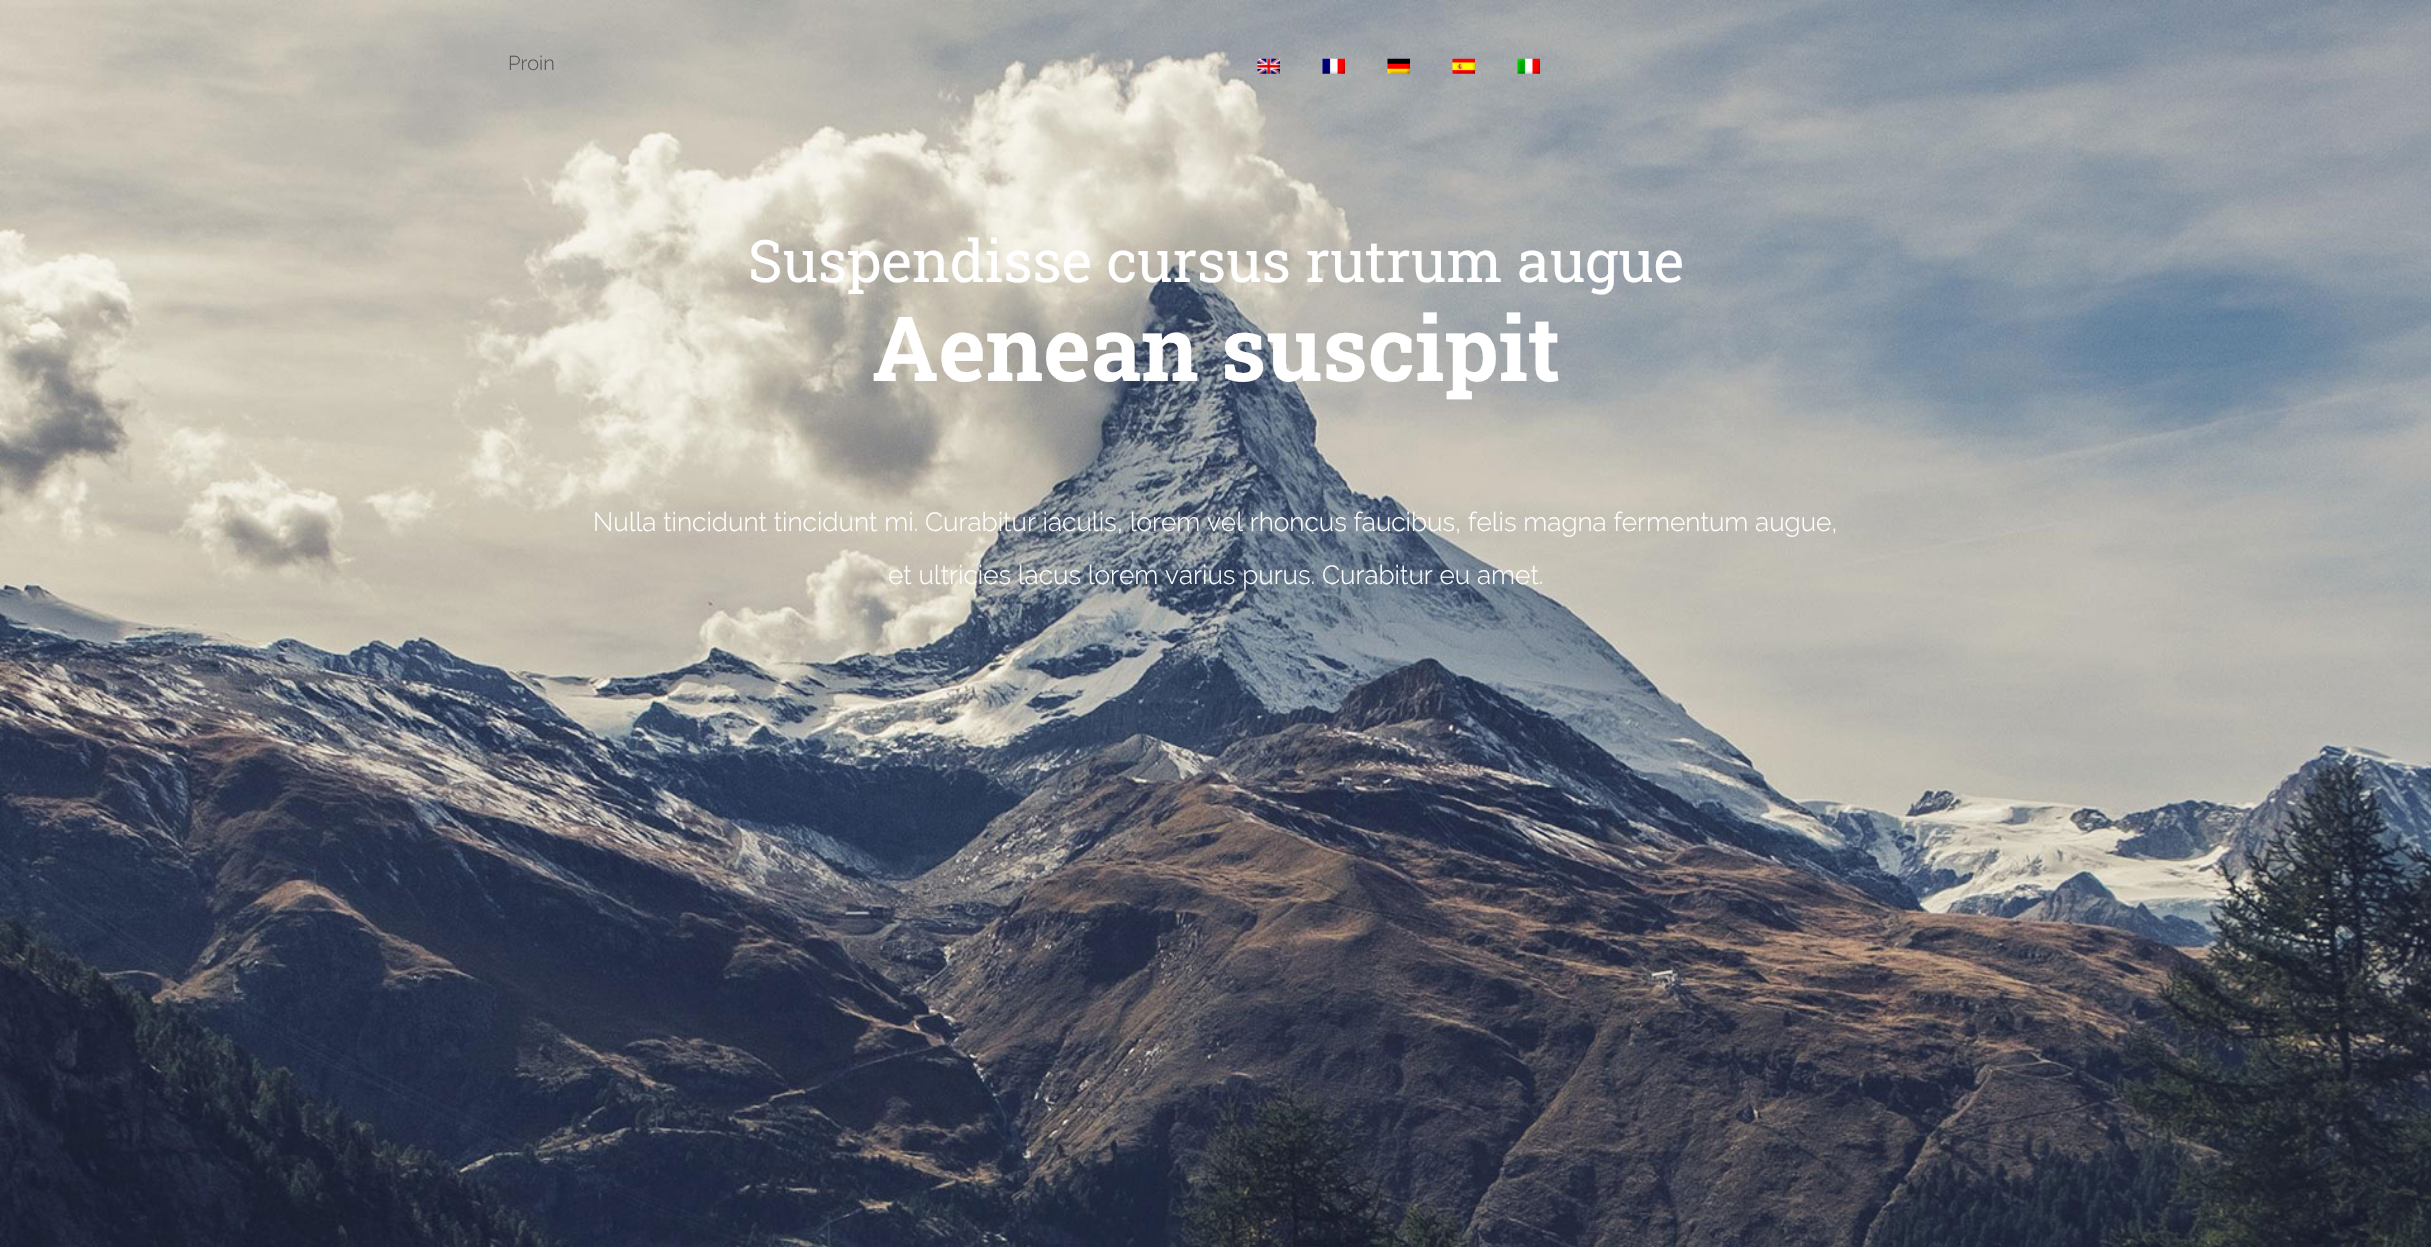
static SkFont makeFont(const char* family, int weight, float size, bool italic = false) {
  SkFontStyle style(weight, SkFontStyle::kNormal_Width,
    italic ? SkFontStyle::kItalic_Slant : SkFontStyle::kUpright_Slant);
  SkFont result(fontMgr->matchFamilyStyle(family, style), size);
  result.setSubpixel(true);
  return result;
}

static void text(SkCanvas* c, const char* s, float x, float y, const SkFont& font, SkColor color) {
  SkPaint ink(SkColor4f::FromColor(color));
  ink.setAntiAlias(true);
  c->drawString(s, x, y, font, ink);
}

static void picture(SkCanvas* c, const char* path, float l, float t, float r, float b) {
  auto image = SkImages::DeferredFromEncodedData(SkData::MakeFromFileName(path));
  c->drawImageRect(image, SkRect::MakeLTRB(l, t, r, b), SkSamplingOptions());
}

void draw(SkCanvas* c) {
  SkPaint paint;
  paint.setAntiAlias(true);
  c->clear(0xffffffff);
  picture(c, "img_01.png", 0, 0, 2431, 1247);
  SkFont face1 = makeFont("Raleway", 300, 20);
  text(c, "Proin", 508, 70, face1, 0xff555555);
  picture(c, "img_02.png", 1257, 58, 1280, 74);
  picture(c, "img_03.png", 1322, 58, 1345, 74);
  picture(c, "img_04.png", 1387, 58, 1410, 74);
  picture(c, "img_05.png", 1452, 58, 1475, 74);
  picture(c, "img_06.png", 1517, 58, 1540, 74);
  SkFont face2 = makeFont("Roboto Slab", 400, 58.5f);
  text(c, "Suspendisse cursus rutrum augue", 748, 282, face2, 0xffffffff);
  SkFont face3 = makeFont("Roboto Slab", 700, 90);
  text(c, "Aenean suscipit", 872, 381, face3, 0xffffffff);
  SkFont face4 = makeFont("Raleway", 300, 26.25f);
  text(c, "Nulla tincidunt tincidunt mi. Curabitur iaculis, lorem vel rhoncus faucibus, felis magna fermentum augue,", 593, 531, face4, 0xffffffff);
  text(c, "et ultricies lacus lorem varius purus. Curabitur eu amet.", 888, 584, face4, 0xffffffff);
}
